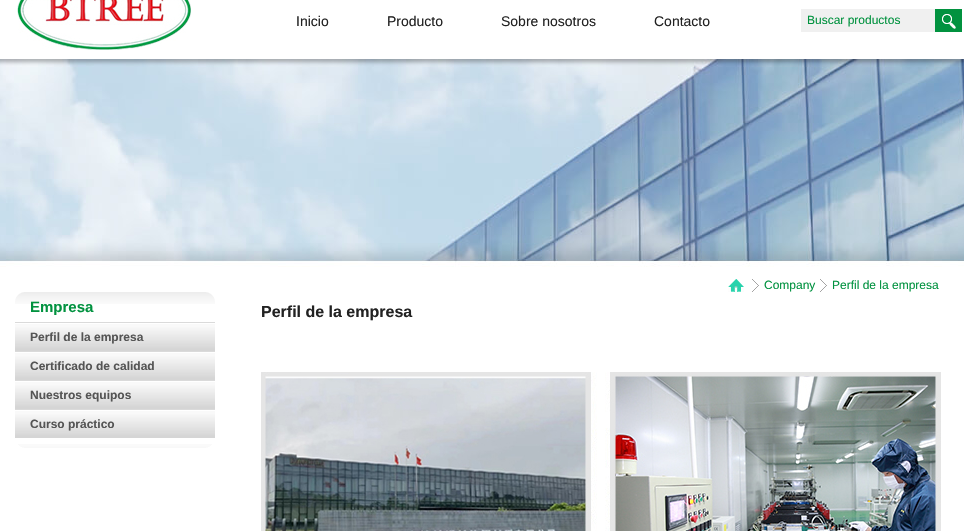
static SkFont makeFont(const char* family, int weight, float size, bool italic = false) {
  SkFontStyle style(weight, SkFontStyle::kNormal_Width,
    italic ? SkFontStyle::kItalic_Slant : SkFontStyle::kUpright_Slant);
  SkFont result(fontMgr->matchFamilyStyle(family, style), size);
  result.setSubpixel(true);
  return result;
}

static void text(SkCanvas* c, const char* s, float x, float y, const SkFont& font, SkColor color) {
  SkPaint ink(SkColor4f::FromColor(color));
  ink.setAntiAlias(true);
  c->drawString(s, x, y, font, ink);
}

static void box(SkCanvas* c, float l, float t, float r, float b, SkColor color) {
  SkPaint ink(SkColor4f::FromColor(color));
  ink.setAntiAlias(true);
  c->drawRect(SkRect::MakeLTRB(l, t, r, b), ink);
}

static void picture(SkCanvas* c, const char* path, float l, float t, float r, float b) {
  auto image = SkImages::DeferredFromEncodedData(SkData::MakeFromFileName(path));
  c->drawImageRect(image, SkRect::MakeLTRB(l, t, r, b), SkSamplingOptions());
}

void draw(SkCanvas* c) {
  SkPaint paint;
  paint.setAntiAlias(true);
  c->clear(0xffffffff);
  picture(c, "img_01.png", 17, 0, 191, 50);
  SkFont face1 = makeFont("Liberation Sans", 400, 14);
  text(c, "Inicio", 296, 26, face1, 0xff222222);
  text(c, "Producto", 387, 26, face1, 0xff222222);
  text(c, "Sobre nosotros", 501, 26, face1, 0xff222222);
  text(c, "Contacto", 654, 26, face1, 0xff222222);
  box(c, 801, 9, 935, 32, 0xfff0f0f0);
  SkFont face2 = makeFont("Liberation Sans", 400, 12);
  text(c, "Buscar productos", 807, 24, face2, 0xff01923f);
  picture(c, "img_02.png", 935, 9, 962, 32);
  picture(c, "img_03.png", 0, 59, 964, 267);
  picture(c, "img_04.png", 728, 279, 744, 292);
  picture(c, "img_05.png", 752, 279, 759, 292);
  text(c, "Company", 764, 289, face2, 0xff01923f);
  picture(c, "img_05.png", 820, 279, 827, 292);
  text(c, "Perfil de la empresa", 832, 289, face2, 0xff01923f);
  picture(c, "img_06.png", 15, 292, 215, 304);
  SkFont face3 = makeFont("Liberation Sans", 700, 15);
  text(c, "Empresa", 30, 312, face3, 0xff01923f);
  picture(c, "img_07.png", 15, 324, 215, 351);
  box(c, 15, 322, 215, 323, 0xffdadada);
  SkFont face4 = makeFont("Liberation Sans", 700, 12);
  text(c, "Perfil de la empresa", 30, 341, face4, 0xff555555);
  picture(c, "img_07.png", 15, 353, 215, 380);
  box(c, 15, 351, 215, 352, 0xffdadada);
  text(c, "Certificado de calidad", 30, 370, face4, 0xff555555);
  picture(c, "img_07.png", 15, 382, 215, 409);
  box(c, 15, 380, 215, 381, 0xffdadada);
  text(c, "Nuestros equipos", 30, 399, face4, 0xff555555);
  picture(c, "img_07.png", 15, 411, 215, 438);
  box(c, 15, 409, 215, 410, 0xffdadada);
  text(c, "Curso práctico", 30, 428, face4, 0xff555555);
  picture(c, "img_08.png", 18, 444, 212, 448);
  SkFont face5 = makeFont("Liberation Sans", 700, 16);
  text(c, "Perfil de la empresa", 261, 317, face5, 0xff222222);
  picture(c, "img_09.png", 261, 372, 941, 531);
}
